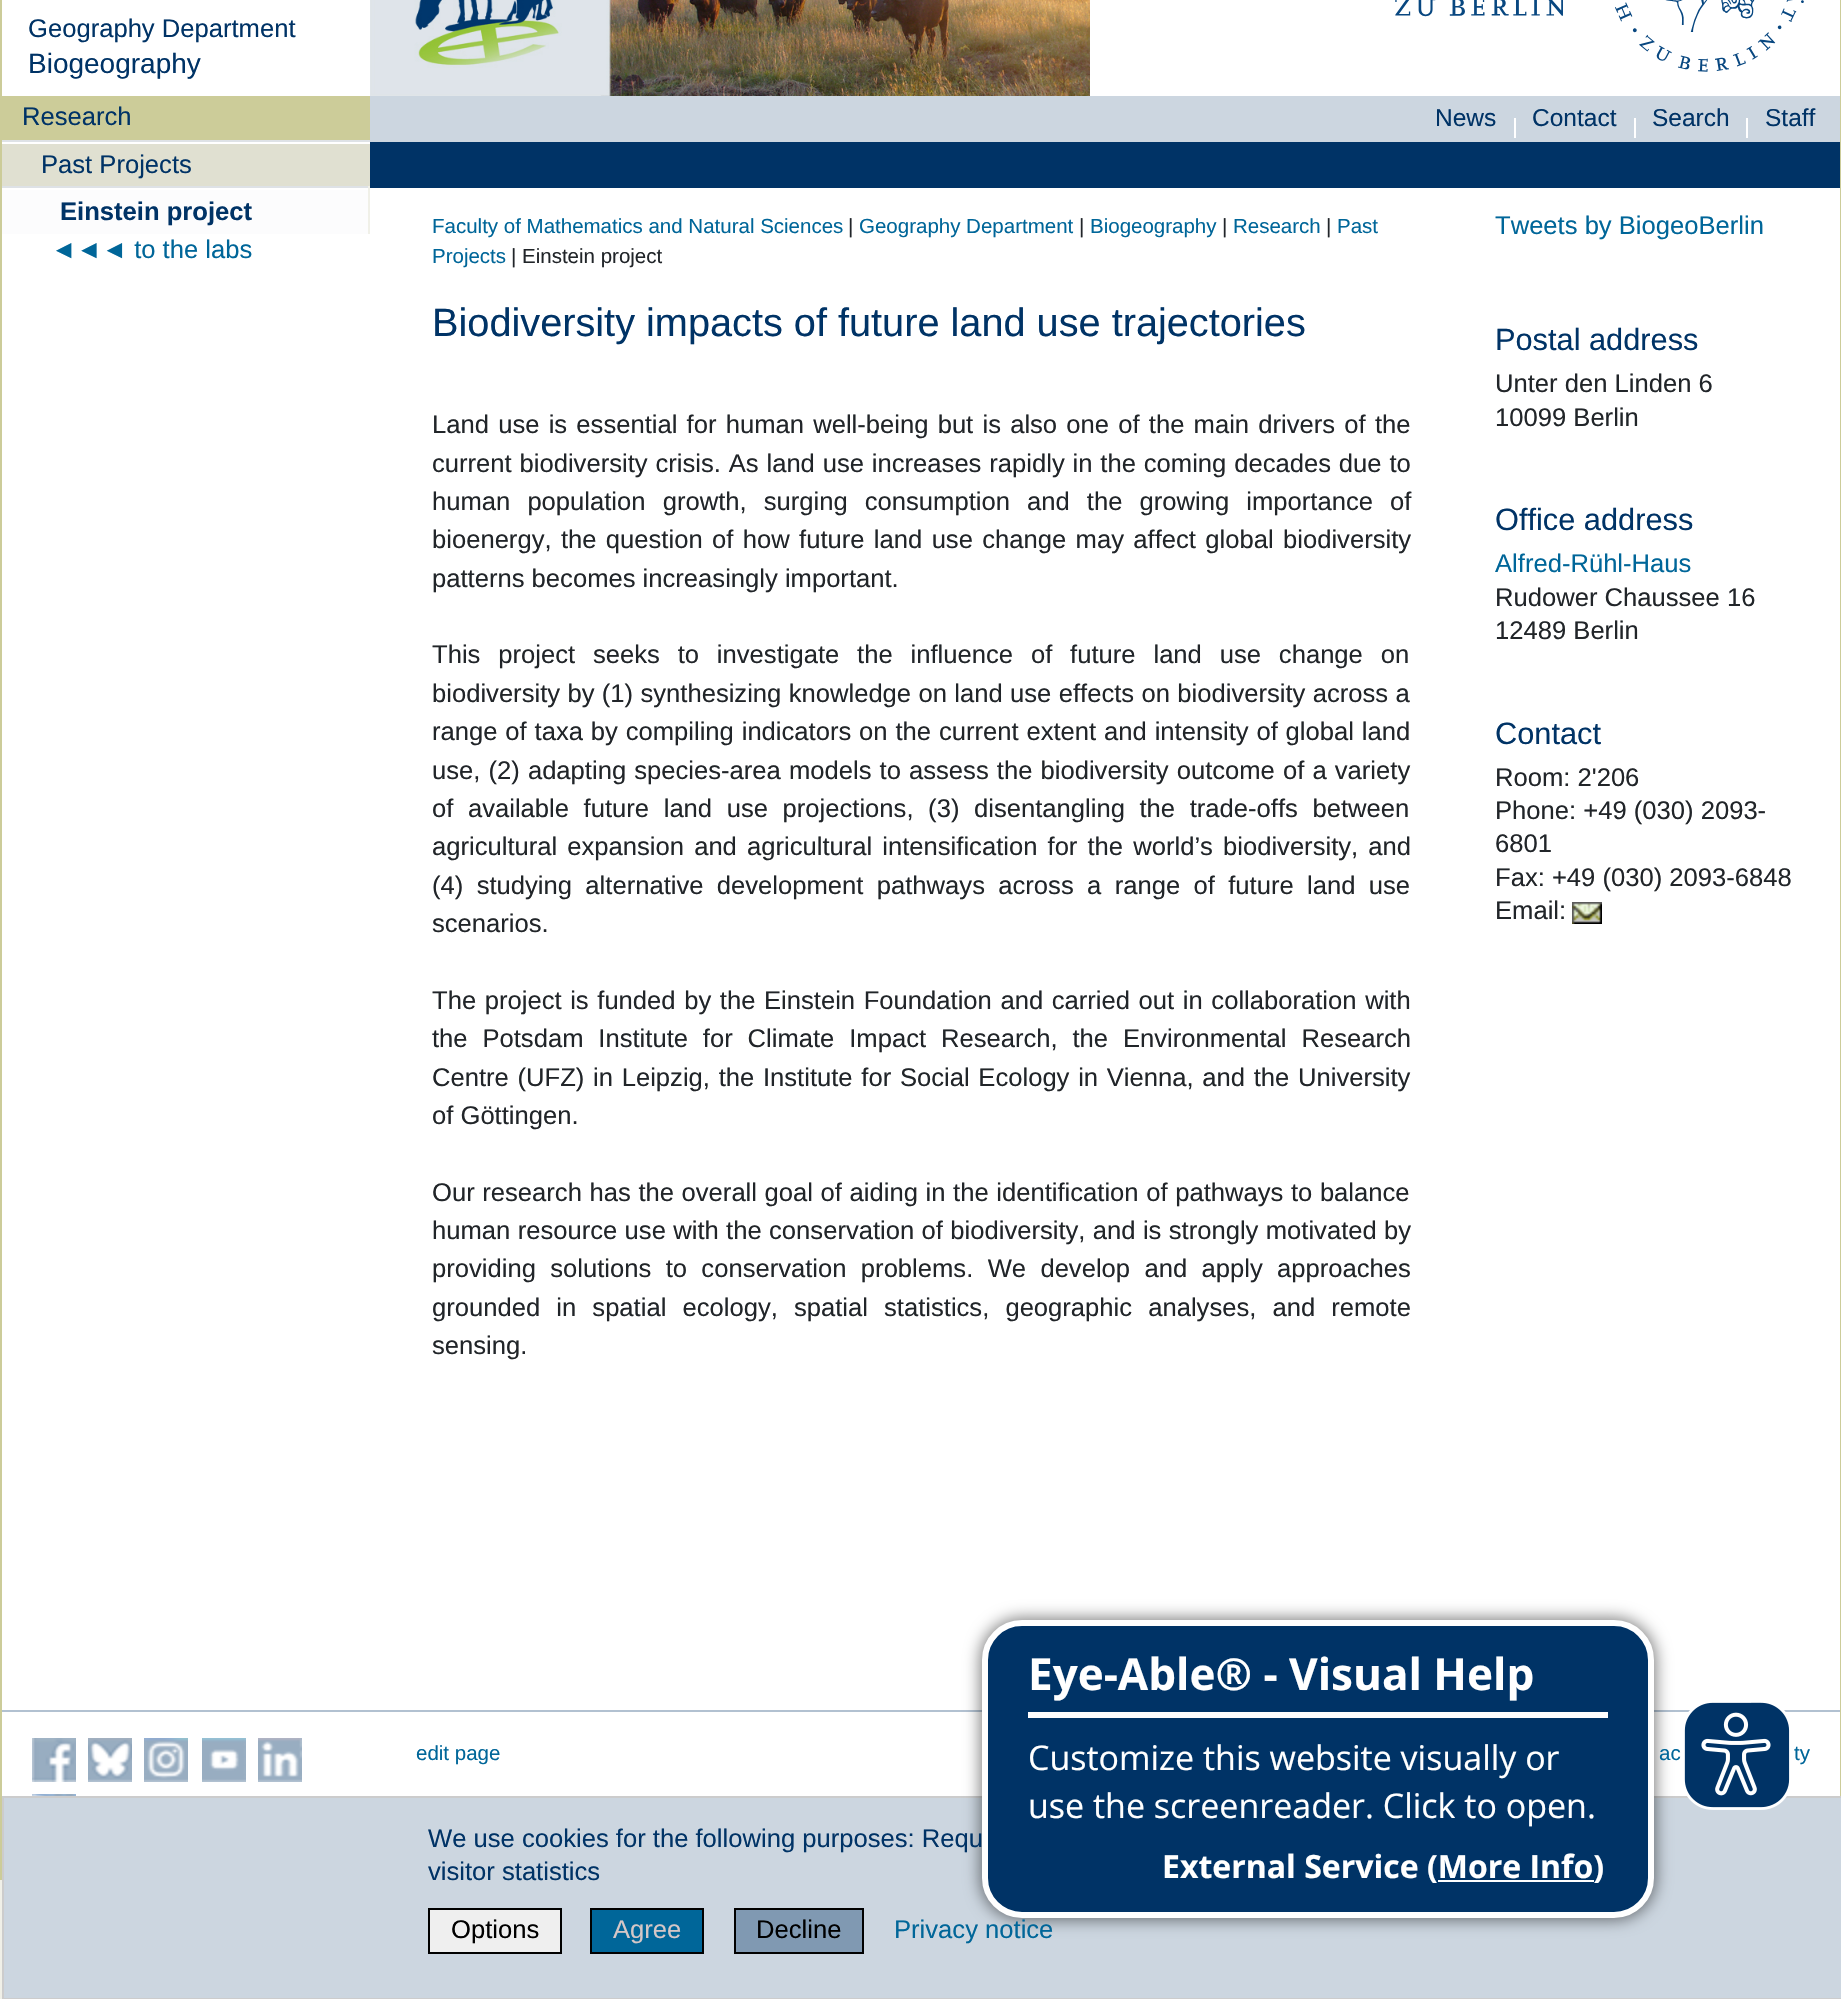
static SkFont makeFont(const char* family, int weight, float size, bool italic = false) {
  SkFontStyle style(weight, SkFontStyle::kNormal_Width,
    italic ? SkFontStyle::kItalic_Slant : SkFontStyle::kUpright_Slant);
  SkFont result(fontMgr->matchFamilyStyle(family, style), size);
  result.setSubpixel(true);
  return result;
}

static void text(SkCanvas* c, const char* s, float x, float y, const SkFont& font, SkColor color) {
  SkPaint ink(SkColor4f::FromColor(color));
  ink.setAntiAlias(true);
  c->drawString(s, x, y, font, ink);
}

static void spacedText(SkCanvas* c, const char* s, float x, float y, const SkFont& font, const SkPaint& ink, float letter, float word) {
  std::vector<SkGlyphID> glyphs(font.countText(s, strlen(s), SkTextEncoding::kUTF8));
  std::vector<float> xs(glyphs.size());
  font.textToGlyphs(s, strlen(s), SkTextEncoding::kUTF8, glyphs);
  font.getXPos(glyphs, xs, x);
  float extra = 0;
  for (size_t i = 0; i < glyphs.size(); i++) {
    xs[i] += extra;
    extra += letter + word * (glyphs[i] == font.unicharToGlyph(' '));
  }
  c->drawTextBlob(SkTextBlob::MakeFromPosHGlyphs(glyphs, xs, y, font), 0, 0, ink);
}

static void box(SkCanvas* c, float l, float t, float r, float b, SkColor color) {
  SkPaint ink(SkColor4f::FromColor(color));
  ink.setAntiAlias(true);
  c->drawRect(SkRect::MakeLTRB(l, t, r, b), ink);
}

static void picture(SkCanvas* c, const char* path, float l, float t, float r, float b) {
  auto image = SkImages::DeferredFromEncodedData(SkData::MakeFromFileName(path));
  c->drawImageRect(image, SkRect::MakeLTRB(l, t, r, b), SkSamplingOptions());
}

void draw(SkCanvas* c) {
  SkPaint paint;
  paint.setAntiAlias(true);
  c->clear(0xfff0f0e8);
  box(c, 2, 0, 1840, 1796, 0xffffffff);
  picture(c, "img_01.png", 370, 0, 1090, 96);
  picture(c, "img_02.png", 1395, 0, 1804, 72);
  box(c, 1840, 0, 1841, 1796, 0xffcccc99);
  box(c, 0, 0, 2, 1880, 0xffcccc99);
  SkFont face1 = makeFont("Liberation Sans", 400, 25.6f);
  text(c, "Geography Department", 28, 37, face1, 0xff003366);
  SkFont face2 = makeFont("Liberation Sans", 400, 28);
  text(c, "Biogeography", 28, 73, face2, 0xff003366);
  box(c, 2, 96, 370, 140, 0xffcccc99);
  text(c, "Research", 22, 125, face1, 0xff003366);
  box(c, 2, 144, 370, 186, 0xffe0e0d1);
  box(c, 2, 140, 370, 142, 0xffdee2e6);
  text(c, "Past Projects", 41, 173, face1, 0xff003366);
  box(c, 2, 186, 370, 188, 0xffdee2e6);
  box(c, 368, 186, 370, 234, 0xfff0f0e8);
  box(c, 2, 190, 368, 234, 0xfffcfcfd);
  SkFont face3 = makeFont("Liberation Sans", 700, 25.6f);
  text(c, "Einstein project", 60, 220, face3, 0xff003366);
  text(c, "◄◄◄ to the labs", 51, 258, face1, 0xff006699);
  box(c, 370, 96, 1840, 142, 0xffccd6e0);
  SkFont face4 = makeFont("Liberation Sans", 400, 24.5f);
  text(c, "News", 1435, 126, face4, 0xff003366);
  box(c, 1514, 118, 1516, 138, 0xffffffff);
  text(c, "Contact", 1532, 126, face4, 0xff003366);
  box(c, 1634, 118, 1636, 138, 0xffffffff);
  text(c, "Search", 1652, 126, face4, 0xff003366);
  box(c, 1746, 118, 1748, 138, 0xffffffff);
  text(c, "Staff", 1765, 126, face4, 0xff003366);
  box(c, 370, 142, 1840, 188, 0xff003366);
  SkFont face5 = makeFont("Liberation Sans", 400, 20.5f);
  text(c, "Faculty of Mathematics and Natural Sciences", 432, 233, face5, 0xff006699);
  text(c, "|", 848, 233, face5, 0xff212529);
  text(c, "Geography Department", 859, 233, face5, 0xff006699);
  text(c, "|", 1079, 233, face5, 0xff212529);
  text(c, "Biogeography", 1090, 233, face5, 0xff006699);
  text(c, "|", 1222, 233, face5, 0xff212529);
  text(c, "Research", 1233, 233, face5, 0xff006699);
  text(c, "|", 1326, 233, face5, 0xff212529);
  text(c, "Past", 1337, 233, face5, 0xff006699);
  text(c, "Projects", 432, 263, face5, 0xff006699);
  text(c, "| Einstein project", 511, 263, face5, 0xff212529);
  SkFont face6 = makeFont("Liberation Sans", 400, 39.7f);
  text(c, "Biodiversity impacts of future land use trajectories", 432, 336, face6, 0xff003366);
  paint.setColor(0xff212529);
  spacedText(c, "Land use is essential for human well-being but is also one of the main drivers of the", 432, 433, face1, paint, 0, 2.1f);
  spacedText(c, "current biodiversity crisis. As land use increases rapidly in the coming decades due to", 432, 472, face1, paint, 0, 0.75f);
  spacedText(c, "human population growth, surging consumption and the growing importance of", 432, 510, face1, paint, 0, 10);
  spacedText(c, "bioenergy, the question of how future land use change may affect global biodiversity", 432, 548, face1, paint, 0, 2.25f);
  text(c, "patterns becomes increasingly important.", 432, 587, face1, 0xff212529);
  spacedText(c, "This project seeks to investigate the influence of future land use change on", 432, 663, face1, paint, 0, 10.75f);
  spacedText(c, "biodiversity by (1) synthesizing knowledge on land use effects on biodiversity across a", 432, 702, face1, paint, 0, 0.25f);
  spacedText(c, "range of taxa by compiling indicators on the current extent and intensity of global land", 432, 740, face1, paint, 0, 0.75f);
  spacedText(c, "use, (2) adapting species-area models to assess the biodiversity outcome of a variety", 432, 779, face1, paint, 0, 1);
  spacedText(c, "of available future land use projections, (3) disentangling the trade-offs between", 432, 817, face1, paint, 0, 7.5f);
  spacedText(c, "agricultural expansion and agricultural intensification for the world’s biodiversity, and", 432, 855, face1, paint, 0, 3);
  spacedText(c, "(4) studying alternative development pathways across a range of future land use", 432, 894, face1, paint, 0, 6.25f);
  text(c, "scenarios.", 432, 932, face1, 0xff212529);
  spacedText(c, "The project is funded by the Einstein Foundation and carried out in collaboration with", 432, 1009, face1, paint, 0, 1.5f);
  spacedText(c, "the Potsdam Institute for Climate Impact Research, the Environmental Research", 432, 1047, face1, paint, 0, 7.75f);
  spacedText(c, "Centre (UFZ) in Leipzig, the Institute for Social Ecology in Vienna, and the University", 432, 1086, face1, paint, 0, 1.6f);
  text(c, "of Göttingen.", 432, 1124, face1, 0xff212529);
  spacedText(c, "Our research has the overall goal of aiding in the identification of pathways to balance", 432, 1201, face1, paint, 0, 0.5f);
  spacedText(c, "human resource use with the conservation of biodiversity, and is strongly motivated by", 432, 1239, face1, paint, 0, 0.25f);
  spacedText(c, "providing solutions to conservation problems. We develop and apply approaches", 432, 1277, face1, paint, 0, 7.25f);
  spacedText(c, "grounded in spatial ecology, spatial statistics, geographic analyses, and remote", 432, 1316, face1, paint, 0, 9);
  text(c, "sensing.", 432, 1354, face1, 0xff212529);
  text(c, "Tweets by BiogeoBerlin", 1495, 234, face1, 0xff006699);
  SkFont face7 = makeFont("Liberation Sans", 400, 30.75f);
  text(c, "Postal address", 1495, 350, face7, 0xff003366);
  text(c, "Unter den Linden 6", 1495, 392, face1, 0xff212529);
  text(c, "10099 Berlin", 1495, 426, face1, 0xff212529);
  text(c, "Office address", 1495, 530, face7, 0xff003366);
  text(c, "Alfred-Rühl-Haus", 1495, 572, face1, 0xff006699);
  text(c, "Rudower Chaussee 16", 1495, 606, face1, 0xff212529);
  text(c, "12489 Berlin", 1495, 639, face1, 0xff212529);
  text(c, "Contact", 1495, 744, face7, 0xff003366);
  text(c, "Room: 2'206", 1495, 786, face1, 0xff212529);
  text(c, "Phone: +49 (030) 2093-", 1495, 819, face1, 0xff212529);
  text(c, "6801", 1495, 852, face1, 0xff212529);
  text(c, "Fax: +49 (030) 2093-6848", 1495, 886, face1, 0xff212529);
  text(c, "Email:", 1495, 919, face1, 0xff212529);
  picture(c, "img_03.png", 1572, 902, 1602, 924);
  box(c, 2, 1710, 1840, 1712, 0xffb2c1d1);
  paint.setColor(0xffccd6e0);
  c->drawRect(SkRect::MakeLTRB(3, 1797, 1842, 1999), paint);
  paint.setStyle(SkPaint::kStroke_Style);
  paint.setStrokeWidth(2);
  paint.setColor(0xffcccccc);
  c->drawRect(SkRect::MakeLTRB(3, 1797, 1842, 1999), paint);
  paint.setStyle(SkPaint::kFill_Style);
  paint.setColor(0x80000000);
  paint.setMaskFilter(SkMaskFilter::MakeBlur(kNormal_SkBlurStyle, 8));
  c->drawRoundRect(SkRect::MakeLTRB(980, 1618, 1656, 1920), 42, 42, paint);
  paint.setMaskFilter(nullptr);
  paint.setColor(0xff003366);
  c->drawRoundRect(SkRect::MakeLTRB(985, 1623, 1651, 1915), 37, 37, paint);
  paint.setStyle(SkPaint::kStroke_Style);
  paint.setStrokeWidth(6);
  paint.setColor(0xffffffff);
  c->drawRoundRect(SkRect::MakeLTRB(985, 1623, 1651, 1915), 37, 37, paint);
  box(c, 1028, 1712, 1608, 1718, 0xffffffff);
  SkFont face8 = makeFont("Open Sans", 700, 44);
  text(c, "Eye-Able® - Visual Help", 1028, 1690, face8, 0xffffffff);
  SkFont face9 = makeFont("Open Sans", 400, 34);
  text(c, "Customize this website visually or", 1028, 1770, face9, 0xffffffff);
  text(c, "use the screenreader. Click to open.", 1028, 1818, face9, 0xffffffff);
  SkFont face10 = makeFont("Open Sans", 700, 32);
  text(c, "External Service (More Info)", 1162, 1878, face10, 0xffffffff);
  box(c, 1438, 1880, 1594, 1882, 0xffffffff);
  picture(c, "img_04.png", 1682, 1702, 1792, 1810);
  picture(c, "img_05.png", 32, 1738, 76, 1782);
  picture(c, "img_06.png", 88, 1738, 132, 1782);
  picture(c, "img_07.png", 144, 1738, 188, 1782);
  picture(c, "img_08.png", 202, 1738, 246, 1782);
  picture(c, "img_09.png", 258, 1738, 302, 1782);
  picture(c, "img_10.png", 32, 1794, 76, 1796);
  text(c, "edit page", 416, 1760, face5, 0xff006699);
  text(c, "ac", 1659, 1760, face5, 0xff006699);
  text(c, "ty", 1794, 1760, face5, 0xff006699);
  text(c, "We use cookies for the following purposes: Requ", 428, 1847, face1, 0xff003366);
  text(c, "visitor statistics", 428, 1880, face1, 0xff003366);
  paint.setStyle(SkPaint::kFill_Style);
  paint.setColor(0xffefefef);
  c->drawRect(SkRect::MakeLTRB(429, 1909, 561, 1953), paint);
  paint.setStyle(SkPaint::kStroke_Style);
  paint.setStrokeWidth(2);
  paint.setColor(0xff000000);
  c->drawRect(SkRect::MakeLTRB(429, 1909, 561, 1953), paint);
  text(c, "Options", 451, 1938, face1, 0xff000000);
  paint.setStyle(SkPaint::kFill_Style);
  paint.setColor(0xff006699);
  c->drawRect(SkRect::MakeLTRB(591, 1909, 703, 1953), paint);
  paint.setStyle(SkPaint::kStroke_Style);
  paint.setColor(0xff000000);
  c->drawRect(SkRect::MakeLTRB(591, 1909, 703, 1953), paint);
  text(c, "Agree", 613, 1938, face1, 0xffd5c7c7);
  paint.setStyle(SkPaint::kFill_Style);
  paint.setColor(0xff8099b2);
  c->drawRect(SkRect::MakeLTRB(735, 1909, 863, 1953), paint);
  paint.setStyle(SkPaint::kStroke_Style);
  paint.setColor(0xff000000);
  c->drawRect(SkRect::MakeLTRB(735, 1909, 863, 1953), paint);
  text(c, "Decline", 756, 1938, face1, 0xff000000);
  text(c, "Privacy notice", 894, 1938, face1, 0xff006699);
}
